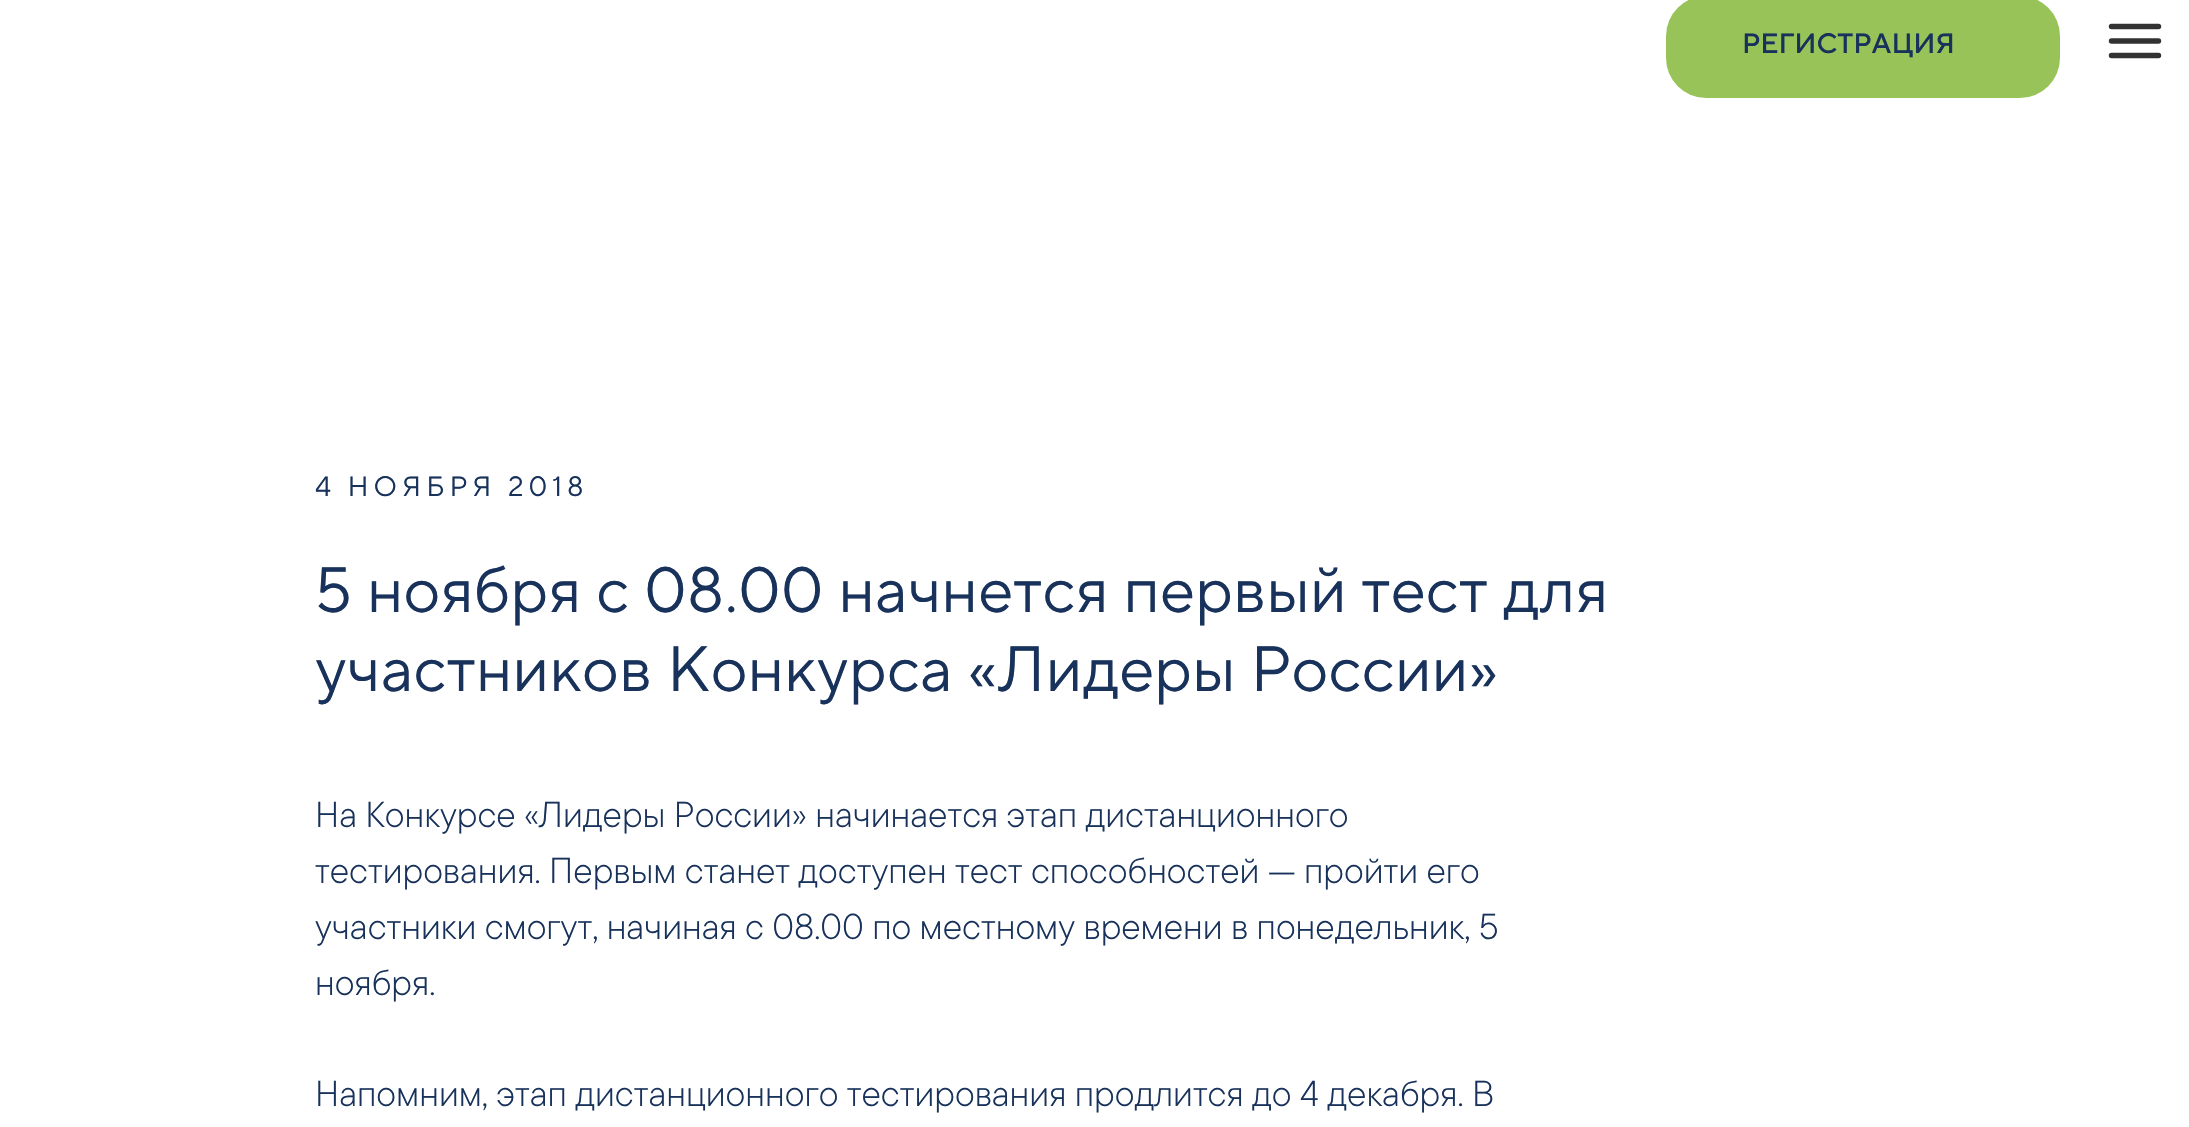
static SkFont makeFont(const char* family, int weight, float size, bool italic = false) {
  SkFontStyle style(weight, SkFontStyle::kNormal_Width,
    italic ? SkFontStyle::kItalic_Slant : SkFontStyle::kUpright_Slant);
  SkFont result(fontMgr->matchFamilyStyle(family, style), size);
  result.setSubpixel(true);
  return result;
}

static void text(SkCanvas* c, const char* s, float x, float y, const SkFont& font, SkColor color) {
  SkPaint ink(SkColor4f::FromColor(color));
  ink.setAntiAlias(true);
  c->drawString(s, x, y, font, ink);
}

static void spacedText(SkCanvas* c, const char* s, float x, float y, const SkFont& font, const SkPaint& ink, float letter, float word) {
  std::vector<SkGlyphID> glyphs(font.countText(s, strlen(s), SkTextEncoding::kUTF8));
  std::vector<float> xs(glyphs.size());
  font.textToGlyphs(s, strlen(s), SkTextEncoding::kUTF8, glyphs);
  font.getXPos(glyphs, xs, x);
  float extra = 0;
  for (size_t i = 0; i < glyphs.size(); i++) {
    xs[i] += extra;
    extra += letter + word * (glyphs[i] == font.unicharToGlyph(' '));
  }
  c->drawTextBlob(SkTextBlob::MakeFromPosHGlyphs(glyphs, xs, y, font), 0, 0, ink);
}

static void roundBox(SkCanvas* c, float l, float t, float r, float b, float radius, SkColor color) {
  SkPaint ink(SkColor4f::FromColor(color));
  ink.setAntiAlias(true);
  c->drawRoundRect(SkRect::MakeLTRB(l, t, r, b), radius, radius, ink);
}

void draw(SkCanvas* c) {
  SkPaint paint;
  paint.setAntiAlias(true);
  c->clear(0xffffffff);
  roundBox(c, 1666, -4, 2060, 98, 40, 0xff98c358);
  SkFont face1 = makeFont("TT", 500, 28);
  text(c, "РЕГИСТРАЦИЯ", 1742, 53, face1, 0xff18325b);
  paint.setStyle(SkPaint::kStroke_Style);
  paint.setStrokeWidth(5.4f);
  paint.setStrokeCap(SkPaint::kRound_Cap);
  paint.setStrokeJoin(SkPaint::kRound_Join);
  paint.setColor(0xff323232);
  c->drawPath(SkPathBuilder().moveTo(2111.5f, 41).lineTo(2158.5f, 41).moveTo(2111.5f, 55.5f).lineTo(2158.5f, 55.5f).moveTo(2111.5f, 26.5f).lineTo(2158.5f, 26.5f).detach(), paint);
  SkFont face2 = makeFont("TT", 400, 28);
  paint.setStyle(SkPaint::kFill_Style);
  paint.setColor(0xff18325b);
  spacedText(c, "4 НОЯБРЯ 2018", 315, 496, face2, paint, 5, 0);
  SkFont face3 = makeFont("TT", 400, 64);
  text(c, "5 ноября с 08.00 начнется первый тест для", 315, 612, face3, 0xff18325b);
  text(c, "участников Конкурса «Лидеры России»", 315, 691, face3, 0xff18325b);
  SkFont face4 = makeFont("TT", 300, 36);
  text(c, "На Конкурсе «Лидеры России» начинается этап дистанционного", 315, 827, face4, 0xff18325b);
  text(c, "тестирования. Первым станет доступен тест способностей — пройти его", 315, 883, face4, 0xff18325b);
  text(c, "участники смогут, начиная с 08.00 по местному времени в понедельник, 5", 315, 939, face4, 0xff18325b);
  text(c, "ноября.", 315, 995, face4, 0xff18325b);
  text(c, "Напомним, этап дистанционного тестирования продлится до 4 декабря. В", 315, 1106, face4, 0xff18325b);
}
